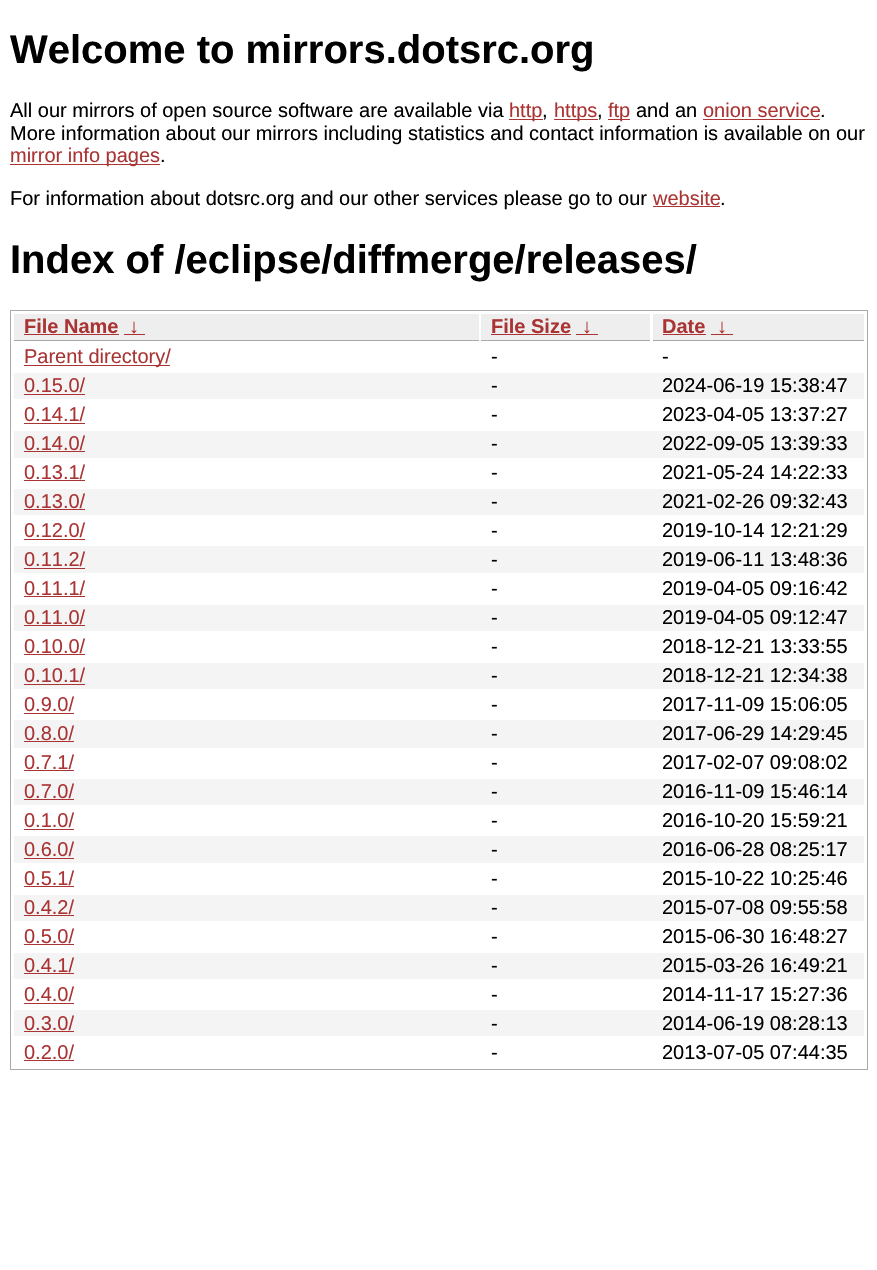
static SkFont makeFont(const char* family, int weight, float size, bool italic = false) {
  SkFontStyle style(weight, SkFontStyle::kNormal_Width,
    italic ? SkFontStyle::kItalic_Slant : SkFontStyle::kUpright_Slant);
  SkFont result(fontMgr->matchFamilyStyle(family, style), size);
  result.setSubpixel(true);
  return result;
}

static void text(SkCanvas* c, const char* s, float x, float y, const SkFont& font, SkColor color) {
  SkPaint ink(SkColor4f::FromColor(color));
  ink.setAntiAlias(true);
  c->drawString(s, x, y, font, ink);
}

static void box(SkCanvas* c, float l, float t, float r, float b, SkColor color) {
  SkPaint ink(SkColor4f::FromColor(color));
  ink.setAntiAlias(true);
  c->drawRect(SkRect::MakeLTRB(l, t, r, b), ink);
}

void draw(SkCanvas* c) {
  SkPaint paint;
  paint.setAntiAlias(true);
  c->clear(0xffffffff);
  SkFont face1 = makeFont("Liberation Sans", 700, 40);
  text(c, "Welcome to mirrors.dotsrc.org", 10, 63, face1, 0xff000000);
  SkFont face2 = makeFont("Liberation Sans", 400, 20);
  text(c, "All our mirrors of open source software are available via", 10, 117, face2, 0xff000000);
  box(c, 509, 119, 543, 120, 0xffaa3333);
  text(c, "http", 509, 117, face2, 0xffaa3333);
  text(c, ",", 542, 117, face2, 0xff000000);
  box(c, 554, 119, 598, 120, 0xffaa3333);
  text(c, "https", 554, 117, face2, 0xffaa3333);
  text(c, ",", 597, 117, face2, 0xff000000);
  box(c, 608, 119, 630, 120, 0xffaa3333);
  text(c, "ftp", 608, 117, face2, 0xffaa3333);
  text(c, "and an", 636, 117, face2, 0xff000000);
  text(c, "onion service", 703, 117, face2, 0xffaa3333);
  box(c, 703, 119, 820, 120, 0xffaa3333);
  text(c, ".", 820, 117, face2, 0xff000000);
  text(c, "More information about our mirrors including statistics and contact information is available on our", 10, 140, face2, 0xff000000);
  box(c, 10, 164, 160, 165, 0xffaa3333);
  text(c, "mirror info pages", 10, 162, face2, 0xffaa3333);
  text(c, ".", 160, 162, face2, 0xff000000);
  text(c, "For information about dotsrc.org and our other services please go to our", 10, 205, face2, 0xff000000);
  text(c, "website", 653, 205, face2, 0xffaa3333);
  box(c, 653, 206, 720, 207, 0xffaa3333);
  text(c, ".", 720, 205, face2, 0xff000000);
  text(c, "Index of /eclipse/diffmerge/releases/", 10, 273, face1, 0xff000000);
  paint.setStyle(SkPaint::kStroke_Style);
  paint.setStrokeWidth(1);
  paint.setColor(0xffaaaaaa);
  c->drawRect(SkRect::MakeLTRB(10.5f, 310.5f, 867.5f, 1069.5f), paint);
  box(c, 14, 314, 479, 340, 0xffeeeeee);
  box(c, 14, 340, 479, 341, 0xffaaaaaa);
  SkFont face3 = makeFont("Liberation Sans", 700, 20);
  text(c, "File Name", 24, 333, face3, 0xffaa3333);
  box(c, 24, 334, 119, 335, 0xffaa3333);
  text(c, "↓", 129, 333, face3, 0xffaa3333);
  box(c, 124, 334, 145, 335, 0xffaa3333);
  box(c, 481, 314, 650, 340, 0xffeeeeee);
  box(c, 481, 340, 650, 341, 0xffaaaaaa);
  text(c, "File Size", 491, 333, face3, 0xffaa3333);
  box(c, 491, 334, 571, 335, 0xffaa3333);
  text(c, "↓", 582, 333, face3, 0xffaa3333);
  box(c, 576, 334, 598, 335, 0xffaa3333);
  box(c, 653, 314, 864, 340, 0xffeeeeee);
  box(c, 653, 340, 864, 341, 0xffaaaaaa);
  text(c, "Date", 662, 333, face3, 0xffaa3333);
  box(c, 663, 334, 706, 335, 0xffaa3333);
  text(c, "↓", 717, 333, face3, 0xffaa3333);
  box(c, 711, 334, 733, 335, 0xffaa3333);
  box(c, 24, 365, 170, 366, 0xffaa3333);
  text(c, "Parent directory/", 24, 363, face2, 0xffaa3333);
  text(c, "-", 491, 363, face2, 0xff000000);
  text(c, "-", 662, 363, face2, 0xff000000);
  box(c, 14, 373, 864, 399, 0xfff4f4f4);
  text(c, "0.15.0/", 24, 392, face2, 0xffaa3333);
  box(c, 24, 394, 85, 395, 0xffaa3333);
  text(c, "-", 491, 392, face2, 0xff000000);
  text(c, "2024-06-19 15:38:47", 662, 392, face2, 0xff000000);
  text(c, "0.14.1/", 24, 421, face2, 0xffaa3333);
  box(c, 24, 423, 85, 424, 0xffaa3333);
  text(c, "-", 491, 421, face2, 0xff000000);
  text(c, "2023-04-05 13:37:27", 662, 421, face2, 0xff000000);
  box(c, 14, 431, 864, 458, 0xfff4f4f4);
  text(c, "0.14.0/", 24, 450, face2, 0xffaa3333);
  box(c, 24, 451, 85, 452, 0xffaa3333);
  text(c, "-", 491, 450, face2, 0xff000000);
  text(c, "2022-09-05 13:39:33", 662, 450, face2, 0xff000000);
  text(c, "0.13.1/", 24, 479, face2, 0xffaa3333);
  box(c, 24, 480, 85, 481, 0xffaa3333);
  text(c, "-", 491, 479, face2, 0xff000000);
  text(c, "2021-05-24 14:22:33", 662, 479, face2, 0xff000000);
  box(c, 14, 489, 864, 515, 0xfff4f4f4);
  text(c, "0.13.0/", 24, 508, face2, 0xffaa3333);
  box(c, 24, 509, 85, 510, 0xffaa3333);
  text(c, "-", 491, 508, face2, 0xff000000);
  text(c, "2021-02-26 09:32:43", 662, 508, face2, 0xff000000);
  text(c, "0.12.0/", 24, 537, face2, 0xffaa3333);
  box(c, 24, 539, 85, 540, 0xffaa3333);
  text(c, "-", 491, 537, face2, 0xff000000);
  text(c, "2019-10-14 12:21:29", 662, 537, face2, 0xff000000);
  box(c, 14, 546, 864, 573, 0xfff4f4f4);
  text(c, "0.11.2/", 24, 566, face2, 0xffaa3333);
  box(c, 24, 568, 85, 569, 0xffaa3333);
  text(c, "-", 491, 566, face2, 0xff000000);
  text(c, "2019-06-11 13:48:36", 662, 566, face2, 0xff000000);
  text(c, "0.11.1/", 24, 595, face2, 0xffaa3333);
  box(c, 24, 596, 85, 597, 0xffaa3333);
  text(c, "-", 491, 595, face2, 0xff000000);
  text(c, "2019-04-05 09:16:42", 662, 595, face2, 0xff000000);
  box(c, 14, 605, 864, 631, 0xfff4f4f4);
  text(c, "0.11.0/", 24, 624, face2, 0xffaa3333);
  box(c, 24, 625, 85, 626, 0xffaa3333);
  text(c, "-", 491, 624, face2, 0xff000000);
  text(c, "2019-04-05 09:12:47", 662, 624, face2, 0xff000000);
  text(c, "0.10.0/", 24, 653, face2, 0xffaa3333);
  box(c, 24, 654, 85, 655, 0xffaa3333);
  text(c, "-", 491, 653, face2, 0xff000000);
  text(c, "2018-12-21 13:33:55", 662, 653, face2, 0xff000000);
  box(c, 14, 663, 864, 689, 0xfff4f4f4);
  text(c, "0.10.1/", 24, 682, face2, 0xffaa3333);
  box(c, 24, 684, 85, 685, 0xffaa3333);
  text(c, "-", 491, 682, face2, 0xff000000);
  text(c, "2018-12-21 12:34:38", 662, 682, face2, 0xff000000);
  text(c, "0.9.0/", 24, 711, face2, 0xffaa3333);
  box(c, 24, 713, 74, 714, 0xffaa3333);
  text(c, "-", 491, 711, face2, 0xff000000);
  text(c, "2017-11-09 15:06:05", 662, 711, face2, 0xff000000);
  box(c, 14, 720, 864, 748, 0xfff4f4f4);
  text(c, "0.8.0/", 24, 740, face2, 0xffaa3333);
  box(c, 24, 741, 74, 742, 0xffaa3333);
  text(c, "-", 491, 740, face2, 0xff000000);
  text(c, "2017-06-29 14:29:45", 662, 740, face2, 0xff000000);
  text(c, "0.7.1/", 24, 769, face2, 0xffaa3333);
  box(c, 24, 770, 74, 771, 0xffaa3333);
  text(c, "-", 491, 769, face2, 0xff000000);
  text(c, "2017-02-07 09:08:02", 662, 769, face2, 0xff000000);
  box(c, 14, 779, 864, 805, 0xfff4f4f4);
  text(c, "0.7.0/", 24, 798, face2, 0xffaa3333);
  box(c, 24, 799, 74, 800, 0xffaa3333);
  text(c, "-", 491, 798, face2, 0xff000000);
  text(c, "2016-11-09 15:46:14", 662, 798, face2, 0xff000000);
  text(c, "0.1.0/", 24, 827, face2, 0xffaa3333);
  box(c, 24, 829, 74, 830, 0xffaa3333);
  text(c, "-", 491, 827, face2, 0xff000000);
  text(c, "2016-10-20 15:59:21", 662, 827, face2, 0xff000000);
  box(c, 14, 836, 864, 863, 0xfff4f4f4);
  text(c, "0.6.0/", 24, 856, face2, 0xffaa3333);
  box(c, 24, 858, 74, 859, 0xffaa3333);
  text(c, "-", 491, 856, face2, 0xff000000);
  text(c, "2016-06-28 08:25:17", 662, 856, face2, 0xff000000);
  text(c, "0.5.1/", 24, 885, face2, 0xffaa3333);
  box(c, 24, 886, 74, 887, 0xffaa3333);
  text(c, "-", 491, 885, face2, 0xff000000);
  text(c, "2015-10-22 10:25:46", 662, 885, face2, 0xff000000);
  box(c, 14, 895, 864, 921, 0xfff4f4f4);
  text(c, "0.4.2/", 24, 914, face2, 0xffaa3333);
  box(c, 24, 915, 74, 916, 0xffaa3333);
  text(c, "-", 491, 914, face2, 0xff000000);
  text(c, "2015-07-08 09:55:58", 662, 914, face2, 0xff000000);
  text(c, "0.5.0/", 24, 943, face2, 0xffaa3333);
  box(c, 24, 944, 74, 945, 0xffaa3333);
  text(c, "-", 491, 943, face2, 0xff000000);
  text(c, "2015-06-30 16:48:27", 662, 943, face2, 0xff000000);
  box(c, 14, 953, 864, 979, 0xfff4f4f4);
  text(c, "0.4.1/", 24, 972, face2, 0xffaa3333);
  box(c, 24, 973, 74, 974, 0xffaa3333);
  text(c, "-", 491, 972, face2, 0xff000000);
  text(c, "2015-03-26 16:49:21", 662, 972, face2, 0xff000000);
  text(c, "0.4.0/", 24, 1001, face2, 0xffaa3333);
  box(c, 24, 1003, 74, 1004, 0xffaa3333);
  text(c, "-", 491, 1001, face2, 0xff000000);
  text(c, "2014-11-17 15:27:36", 662, 1001, face2, 0xff000000);
  box(c, 14, 1010, 864, 1036, 0xfff4f4f4);
  text(c, "0.3.0/", 24, 1030, face2, 0xffaa3333);
  box(c, 24, 1031, 74, 1032, 0xffaa3333);
  text(c, "-", 491, 1030, face2, 0xff000000);
  text(c, "2014-06-19 08:28:13", 662, 1030, face2, 0xff000000);
  text(c, "0.2.0/", 24, 1059, face2, 0xffaa3333);
  box(c, 24, 1060, 74, 1061, 0xffaa3333);
  text(c, "-", 491, 1059, face2, 0xff000000);
  text(c, "2013-07-05 07:44:35", 662, 1059, face2, 0xff000000);
}
